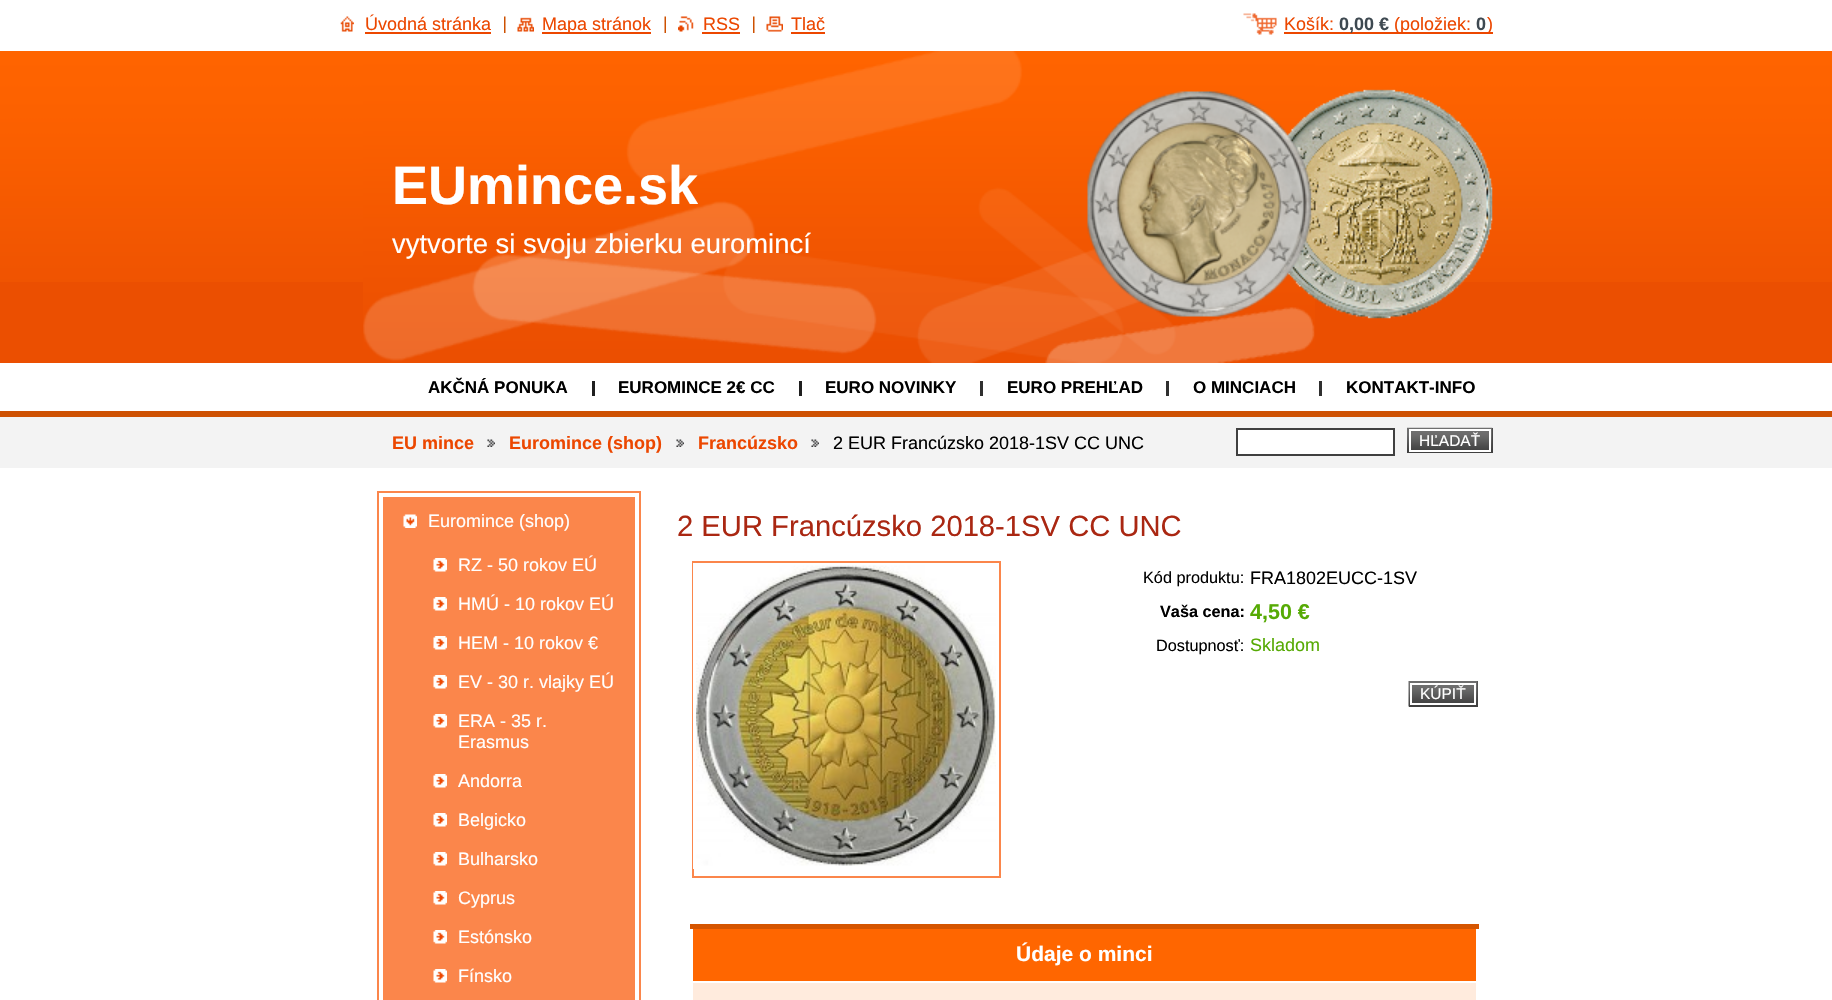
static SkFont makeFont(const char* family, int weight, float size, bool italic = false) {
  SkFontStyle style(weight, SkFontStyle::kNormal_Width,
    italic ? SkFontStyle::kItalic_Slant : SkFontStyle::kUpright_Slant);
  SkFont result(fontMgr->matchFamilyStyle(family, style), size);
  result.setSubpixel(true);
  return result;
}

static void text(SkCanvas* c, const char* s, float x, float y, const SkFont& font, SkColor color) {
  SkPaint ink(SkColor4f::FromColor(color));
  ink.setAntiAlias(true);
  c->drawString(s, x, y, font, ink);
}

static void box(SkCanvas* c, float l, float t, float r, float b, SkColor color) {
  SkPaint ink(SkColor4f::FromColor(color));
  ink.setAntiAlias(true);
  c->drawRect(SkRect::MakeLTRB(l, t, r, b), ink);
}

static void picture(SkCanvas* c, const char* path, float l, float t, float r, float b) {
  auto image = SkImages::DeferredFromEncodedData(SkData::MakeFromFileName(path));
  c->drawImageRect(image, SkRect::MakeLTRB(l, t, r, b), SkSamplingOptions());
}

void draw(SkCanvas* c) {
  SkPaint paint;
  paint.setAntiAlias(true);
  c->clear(0xffffffff);
  picture(c, "img_01.png", 340, 16, 354, 32);
  SkFont face1 = makeFont("Liberation Sans", 400, 18);
  text(c, "Úvodná stránka", 365, 30, face1, 0xffec4700);
  box(c, 365, 32, 491, 34, 0xffec4700);
  picture(c, "img_02.png", 504, 16, 506, 33);
  picture(c, "img_03.png", 517, 17, 534, 32);
  box(c, 542, 32, 651, 34, 0xffec4700);
  text(c, "Mapa stránok", 542, 30, face1, 0xffec4700);
  picture(c, "img_04.png", 664, 16, 666, 33);
  picture(c, "img_05.png", 678, 16, 694, 32);
  text(c, "RSS", 703, 30, face1, 0xffec4700);
  box(c, 702, 32, 740, 34, 0xffec4700);
  picture(c, "img_02.png", 753, 16, 755, 33);
  picture(c, "img_06.png", 766, 16, 783, 32);
  text(c, "Tlač", 791, 30, face1, 0xffec4700);
  box(c, 791, 32, 825, 34, 0xffec4700);
  picture(c, "img_07.png", 1243, 13, 1277, 35);
  text(c, "Košík:", 1284, 30, face1, 0xffec4700);
  box(c, 1284, 32, 1389, 34, 0xffec4700);
  SkFont face2 = makeFont("Liberation Sans", 700, 18);
  text(c, "0,00 €", 1339, 30, face2, 0xff3e4951);
  box(c, 1389, 32, 1493, 34, 0xffec4700);
  text(c, "(položiek:", 1394, 30, face1, 0xffec4700);
  text(c, "0", 1476, 30, face2, 0xff3e4951);
  text(c, ")", 1487, 30, face1, 0xffec4700);
  box(c, 0, 282, 1832, 363, 0xffeb4f01);
  picture(c, "img_08.png", 0, 51, 1832, 282);
  picture(c, "img_09.png", 363, 51, 1315, 363);
  SkFont face3 = makeFont("Liberation Sans", 700, 54);
  text(c, "EUmince.sk", 392, 204, face3, 0xffffffff);
  SkFont face4 = makeFont("Liberation Sans", 400, 27.4f);
  text(c, "vytvorte si svoju zbierku euromincí", 392, 253, face4, 0xffffffff);
  picture(c, "img_10.png", 1087, 89, 1493, 319);
  SkFont face5 = makeFont("Liberation Sans", 700, 17);
  text(c, "AKČNÁ PONUKA", 428, 393, face5, 0xff000000);
  box(c, 592, 381, 595, 396, 0xff1f1f1f);
  text(c, "EUROMINCE 2€ CC", 618, 393, face5, 0xff000000);
  box(c, 799, 381, 802, 396, 0xff1f1f1f);
  text(c, "EURO NOVINKY", 825, 393, face5, 0xff000000);
  box(c, 980, 381, 983, 396, 0xff2f2f2f);
  text(c, "EURO PREHĽAD", 1007, 393, face5, 0xff000000);
  box(c, 1166, 381, 1169, 396, 0xff2f2f2f);
  text(c, "O MINCIACH", 1193, 393, face5, 0xff000000);
  box(c, 1319, 381, 1322, 396, 0xff2f2f2f);
  text(c, "KONTAKT-INFO", 1346, 393, face5, 0xff000000);
  box(c, 0, 417, 1832, 468, 0xfff3f3f3);
  box(c, 0, 411, 1832, 417, 0xffce5102);
  text(c, "EU mince", 392, 449, face2, 0xffec4700);
  picture(c, "img_11.png", 487, 439, 495, 447);
  text(c, "Euromince (shop)", 509, 449, face2, 0xffec4700);
  picture(c, "img_12.png", 676, 439, 684, 447);
  text(c, "Francúzsko", 698, 449, face2, 0xffec4700);
  picture(c, "img_11.png", 811, 439, 819, 447);
  text(c, "2 EUR Francúzsko 2018-1SV CC UNC", 833, 449, face1, 0xff000000);
  paint.setColor(0xffffffff);
  c->drawRect(SkRect::MakeLTRB(1237, 429, 1394, 455), paint);
  paint.setStyle(SkPaint::kStroke_Style);
  paint.setStrokeWidth(2);
  paint.setColor(0xff404040);
  c->drawRect(SkRect::MakeLTRB(1237, 429, 1394, 455), paint);
  box(c, 1407, 428, 1493, 453, 0xff404040);
  picture(c, "img_13.png", 1407, 427, 1493, 450);
  picture(c, "img_14.png", 1411, 431, 1489, 450);
  paint.setColor(0xffffffff);
  c->drawRect(SkRect::MakeLTRB(1410, 430, 1490, 451), paint);
  SkFont face6 = makeFont("Liberation Sans", 400, 15.5f);
  text(c, "HĽADAŤ", 1419, 446, face6, 0xffffffff);
  paint.setColor(0xfffb864b);
  c->drawRect(SkRect::MakeLTRB(378, 492, 640, 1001), paint);
  box(c, 383, 497, 635, 1000, 0xfffb864b);
  picture(c, "img_15.png", 403, 514, 417, 528);
  text(c, "Euromince (shop)", 428, 527, face1, 0xffffffff);
  picture(c, "img_16.png", 433, 558, 447, 572);
  text(c, "RZ - 50 rokov EÚ", 458, 571, face1, 0xffffffff);
  picture(c, "img_16.png", 433, 597, 447, 611);
  text(c, "HMÚ - 10 rokov EÚ", 458, 610, face1, 0xffffffff);
  picture(c, "img_16.png", 433, 636, 447, 650);
  text(c, "HEM - 10 rokov €", 458, 649, face1, 0xffffffff);
  picture(c, "img_16.png", 433, 675, 447, 689);
  text(c, "EV - 30 r. vlajky EÚ", 458, 688, face1, 0xffffffff);
  picture(c, "img_16.png", 433, 714, 447, 728);
  text(c, "ERA - 35 r.", 458, 727, face1, 0xffffffff);
  text(c, "Erasmus", 458, 748, face1, 0xffffffff);
  picture(c, "img_16.png", 433, 774, 447, 788);
  text(c, "Andorra", 458, 787, face1, 0xffffffff);
  picture(c, "img_16.png", 433, 813, 447, 827);
  text(c, "Belgicko", 458, 826, face1, 0xffffffff);
  picture(c, "img_16.png", 433, 852, 447, 866);
  text(c, "Bulharsko", 458, 865, face1, 0xffffffff);
  picture(c, "img_16.png", 433, 891, 447, 905);
  text(c, "Cyprus", 458, 904, face1, 0xffffffff);
  picture(c, "img_16.png", 433, 930, 447, 944);
  text(c, "Estónsko", 458, 943, face1, 0xffffffff);
  picture(c, "img_16.png", 433, 969, 447, 983);
  text(c, "Fínsko", 458, 982, face1, 0xffffffff);
  SkFont face7 = makeFont("Liberation Sans", 400, 29.2f);
  text(c, "2 EUR Francúzsko 2018-1SV CC UNC", 677, 536, face7, 0xffaa2712);
  c->drawRect(SkRect::MakeLTRB(693, 562, 1000, 877), paint);
  paint.setStrokeWidth(3);
  paint.setColor(0xffffffff);
  c->drawRect(SkRect::MakeLTRB(694.5f, 564.5f, 997.5f, 867.5f), paint);
  picture(c, "img_17.png", 696, 565, 996, 866);
  SkFont face8 = makeFont("Liberation Sans", 400, 16.25f);
  text(c, "Kód produktu:", 1143, 583, face8, 0xff000000);
  text(c, "FRA1802EUCC-1SV", 1250, 584, face1, 0xff000000);
  SkFont face9 = makeFont("Liberation Sans", 700, 16.25f);
  text(c, "Vaša cena:", 1160, 617, face9, 0xff000000);
  SkFont face10 = makeFont("Liberation Sans", 700, 21.5f);
  text(c, "4,50 €", 1250, 619, face10, 0xff56aa04);
  text(c, "Dostupnosť:", 1156, 651, face8, 0xff000000);
  text(c, "Skladom", 1250, 651, face1, 0xff56aa04);
  box(c, 1409, 681, 1478, 707, 0xff404040);
  picture(c, "img_18.png", 1408, 681, 1478, 707);
  picture(c, "img_19.png", 1412, 685, 1474, 703);
  paint.setStrokeWidth(2);
  c->drawRect(SkRect::MakeLTRB(1411, 684, 1475, 704), paint);
  text(c, "KÚPIŤ", 1420, 699, face6, 0xffffffff);
  box(c, 693, 929, 1476, 981, 0xffff6600);
  box(c, 690, 924, 1479, 929, 0xffd55500);
  SkFont face11 = makeFont("Liberation Sans", 700, 21);
  text(c, "Údaje o minci", 1016, 961, face11, 0xffffffff);
  box(c, 693, 983, 1476, 1000, 0xffffebdd);
}
